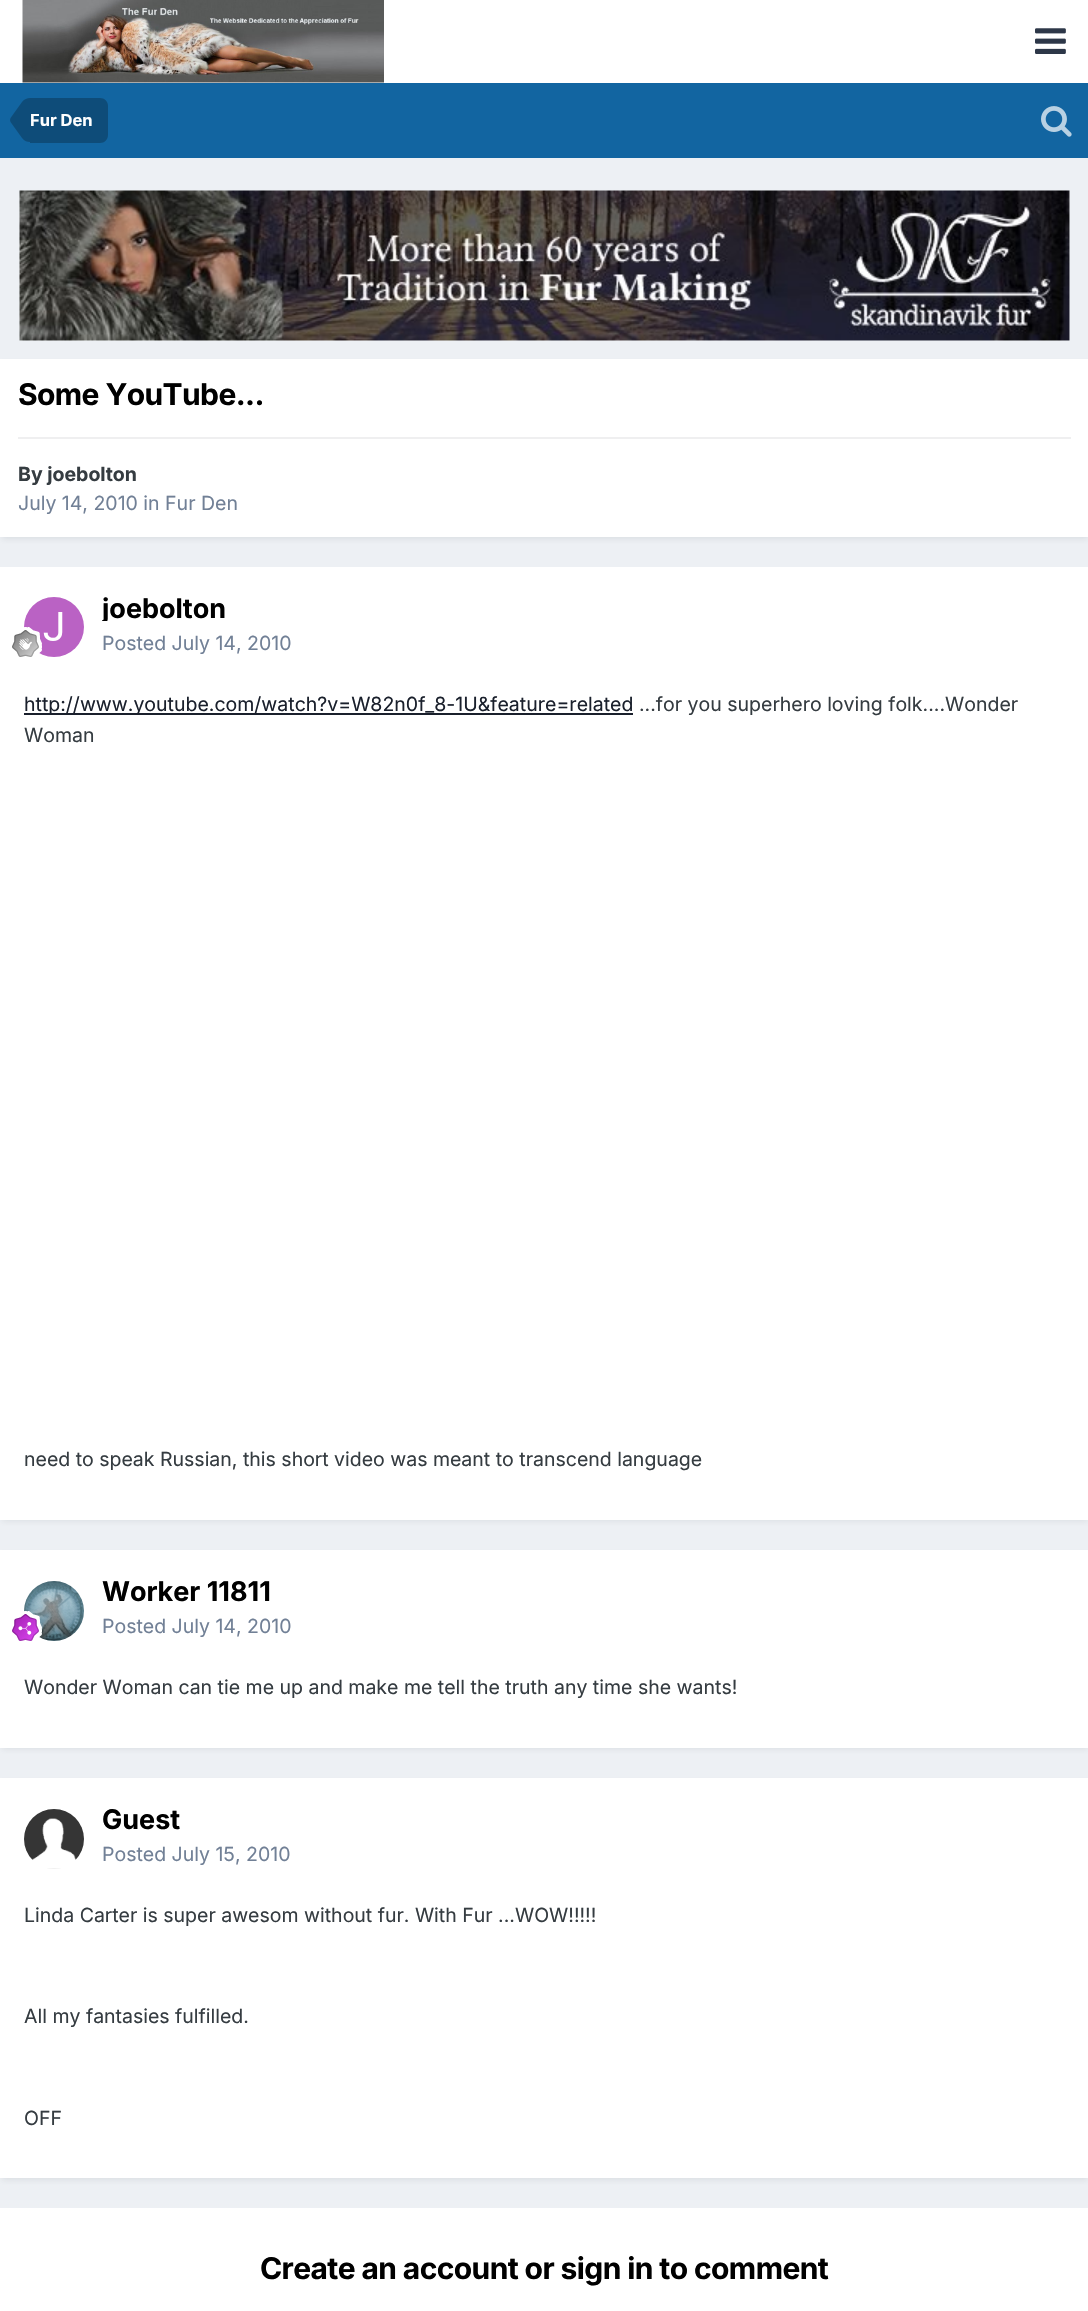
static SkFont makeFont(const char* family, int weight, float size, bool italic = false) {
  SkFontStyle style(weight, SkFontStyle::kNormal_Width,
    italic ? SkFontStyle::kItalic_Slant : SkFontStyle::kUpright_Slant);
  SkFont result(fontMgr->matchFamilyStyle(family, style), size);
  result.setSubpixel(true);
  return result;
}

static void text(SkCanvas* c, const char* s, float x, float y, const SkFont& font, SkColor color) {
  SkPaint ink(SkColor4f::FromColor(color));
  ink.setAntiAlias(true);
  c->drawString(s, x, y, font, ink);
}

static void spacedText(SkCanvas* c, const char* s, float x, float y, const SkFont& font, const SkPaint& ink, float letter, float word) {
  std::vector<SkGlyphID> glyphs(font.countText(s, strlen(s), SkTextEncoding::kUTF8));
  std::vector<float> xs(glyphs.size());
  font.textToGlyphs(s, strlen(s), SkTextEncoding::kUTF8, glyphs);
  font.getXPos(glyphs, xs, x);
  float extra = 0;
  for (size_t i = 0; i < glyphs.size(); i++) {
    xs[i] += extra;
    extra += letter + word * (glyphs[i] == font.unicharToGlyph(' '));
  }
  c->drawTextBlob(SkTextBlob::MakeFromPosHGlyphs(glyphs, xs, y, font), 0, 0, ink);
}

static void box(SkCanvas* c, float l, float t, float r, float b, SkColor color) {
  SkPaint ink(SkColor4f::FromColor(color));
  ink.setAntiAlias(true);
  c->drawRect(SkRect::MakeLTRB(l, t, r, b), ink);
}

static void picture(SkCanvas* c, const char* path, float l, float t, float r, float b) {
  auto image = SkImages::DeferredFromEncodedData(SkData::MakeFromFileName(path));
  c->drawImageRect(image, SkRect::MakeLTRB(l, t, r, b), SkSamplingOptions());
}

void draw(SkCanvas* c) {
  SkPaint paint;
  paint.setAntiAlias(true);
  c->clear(0xffedf0f4);
  box(c, 0, 0, 1088, 83, 0xffffffff);
  picture(c, "img_01.png", 22, 0, 384, 83);
  picture(c, "img_02.png", 1035, 28, 1066, 54);
  box(c, 0, 83, 1088, 158, 0xff1265a1);
  paint.setColor(0xff0e4c79);
  c->drawPath(SkPathBuilder().moveTo(30, 98).lineTo(100, 98).cubicTo(104.5f, 98, 108, 101.5f, 108, 106).lineTo(108, 135).cubicTo(108, 139.5f, 104.5f, 143, 100, 143).lineTo(30, 143).close().detach(), paint);
  c->drawPath(SkPathBuilder().moveTo(30, 120).lineTo(30, 142).cubicTo(27, 142, 24.5f, 141, 22, 138).lineTo(10.5f, 122).lineTo(10, 120).close().moveTo(30, 120).lineTo(10, 120).lineTo(10.5f, 118).lineTo(22, 102).cubicTo(24.5f, 99, 27, 98, 30, 98).close().detach(), paint);
  SkFont face1 = makeFont("Inter", 700, 16.5f);
  text(c, "Fur Den", 30, 126, face1, 0xffffffff);
  picture(c, "img_03.png", 1041, 106, 1072, 137);
  box(c, 20, 191, 1070, 341, 0xfff7fafc);
  picture(c, "img_04.png", 19, 190, 1070, 341);
  paint.setColor(0x1a2d3748);
  paint.setMaskFilter(SkMaskFilter::MakeBlur(kNormal_SkBlurStyle, 3));
  c->drawRect(SkRect::MakeLTRB(2, 363, 1088, 539), paint);
  paint.setMaskFilter(nullptr);
  box(c, 0, 359, 1088, 537, 0xffffffff);
  SkFont face2 = makeFont("Inter", 700, 30);
  paint.setColor(0xff000000);
  spacedText(c, "Some YouTube...", 18, 405, face2, paint, -0.6f, 0);
  box(c, 18, 437, 1071, 439, 0xffefeff0);
  SkFont face3 = makeFont("Inter", 700, 19.5f);
  text(c, "By joebolton", 18, 481, face3, 0xff353c41);
  SkFont face4 = makeFont("Inter", 400, 19.5f);
  text(c, "July 14, 2010 in Fur Den", 18, 510, face4, 0xff718096);
  paint.setColor(0x1a2d3748);
  paint.setMaskFilter(SkMaskFilter::MakeBlur(kNormal_SkBlurStyle, 3));
  c->drawRect(SkRect::MakeLTRB(2, 572, 1088, 1521), paint);
  paint.setMaskFilter(nullptr);
  box(c, 0, 567, 1088, 1520, 0xffffffff);
  picture(c, "img_05.png", 24, 597, 84, 657);
  picture(c, "img_06.png", 12, 627, 42, 657);
  c->save();
  c->clipRect(SkRect::MakeLTRB(102, 597, 227, 621));
  SkFont face5 = makeFont("Inter", 700, 27);
  text(c, "joebolton", 102, 618, face5, 0xff000000);
  c->restore();
  text(c, "Posted July 14, 2010", 102, 650, face4, 0xff718096);
  box(c, 24, 713, 633, 715, 0xff1a202c);
  text(c, "http://www.youtube.com/watch?v=W82n0f_8-1U&feature=related", 24, 711, face4, 0xff1a202c);
  text(c, "...for you superhero loving folk....Wonder", 639, 711, face4, 0xff353c41);
  text(c, "Woman", 24, 742, face4, 0xff353c41);
  text(c, "need to speak Russian, this short video was meant to transcend language", 24, 1466, face4, 0xff353c41);
  paint.setMaskFilter(SkMaskFilter::MakeBlur(kNormal_SkBlurStyle, 3));
  c->drawRect(SkRect::MakeLTRB(2, 1554, 1088, 1749), paint);
  paint.setMaskFilter(nullptr);
  box(c, 0, 1550, 1088, 1748, 0xffffffff);
  picture(c, "img_07.png", 24, 1581, 84, 1641);
  picture(c, "img_08.png", 12, 1611, 42, 1641);
  text(c, "Worker 11811", 102, 1601, face5, 0xff000000);
  text(c, "Posted July 14, 2010", 102, 1633, face4, 0xff718096);
  text(c, "Wonder Woman can tie me up and make me tell the truth any time she wants!", 24, 1694, face4, 0xff353c41);
  paint.setMaskFilter(SkMaskFilter::MakeBlur(kNormal_SkBlurStyle, 3));
  c->drawRect(SkRect::MakeLTRB(2, 1782, 1088, 2180), paint);
  paint.setMaskFilter(nullptr);
  box(c, 0, 1778, 1088, 2178, 0xffffffff);
  picture(c, "img_09.png", 24, 1809, 84, 1869);
  text(c, "Guest", 102, 1829, face5, 0xff000000);
  text(c, "Posted July 15, 2010", 102, 1861, face4, 0xff718096);
  text(c, "Linda Carter is super awesom without fur. With Fur ...WOW!!!!!", 24, 1922, face4, 0xff353c41);
  text(c, "All my fantasies fulfilled.", 24, 2023, face4, 0xff353c41);
  text(c, "OFF", 24, 2125, face4, 0xff353c41);
  box(c, 0, 2208, 1088, 2311, 0xffffffff);
  paint.setColor(0xff000000);
  spacedText(c, "Create an account or sign in to comment", 260, 2279, face2, paint, -0.6f, 0);
}
